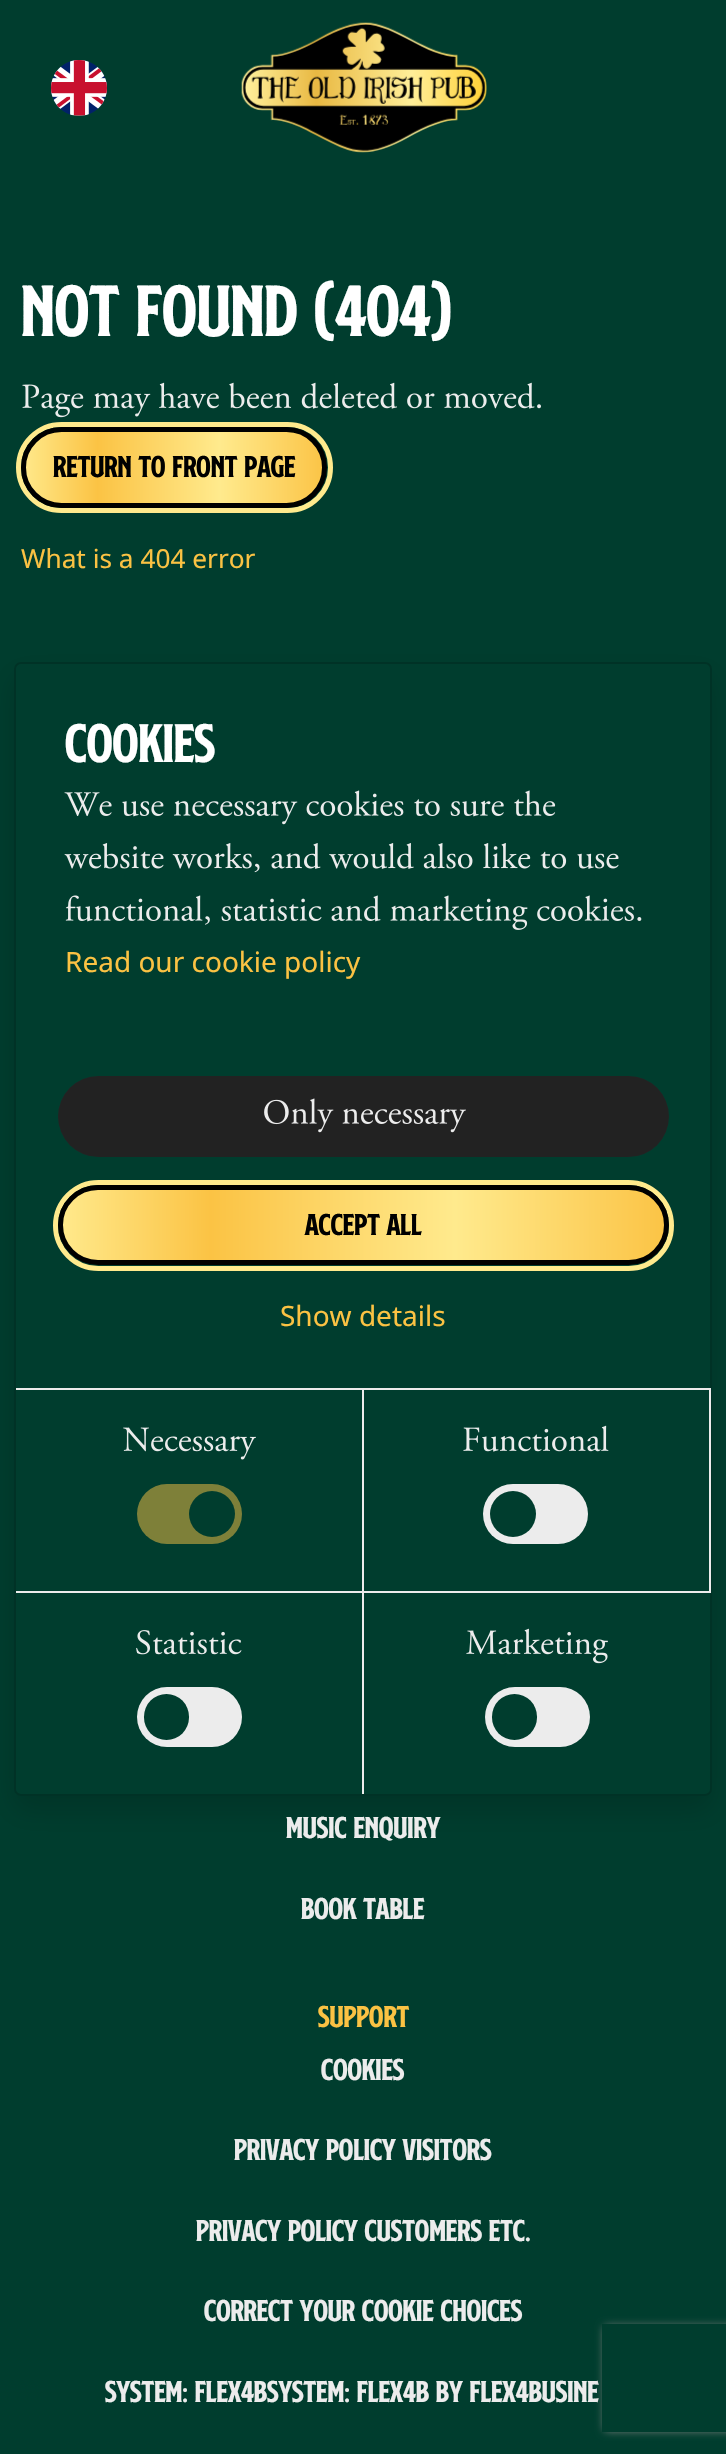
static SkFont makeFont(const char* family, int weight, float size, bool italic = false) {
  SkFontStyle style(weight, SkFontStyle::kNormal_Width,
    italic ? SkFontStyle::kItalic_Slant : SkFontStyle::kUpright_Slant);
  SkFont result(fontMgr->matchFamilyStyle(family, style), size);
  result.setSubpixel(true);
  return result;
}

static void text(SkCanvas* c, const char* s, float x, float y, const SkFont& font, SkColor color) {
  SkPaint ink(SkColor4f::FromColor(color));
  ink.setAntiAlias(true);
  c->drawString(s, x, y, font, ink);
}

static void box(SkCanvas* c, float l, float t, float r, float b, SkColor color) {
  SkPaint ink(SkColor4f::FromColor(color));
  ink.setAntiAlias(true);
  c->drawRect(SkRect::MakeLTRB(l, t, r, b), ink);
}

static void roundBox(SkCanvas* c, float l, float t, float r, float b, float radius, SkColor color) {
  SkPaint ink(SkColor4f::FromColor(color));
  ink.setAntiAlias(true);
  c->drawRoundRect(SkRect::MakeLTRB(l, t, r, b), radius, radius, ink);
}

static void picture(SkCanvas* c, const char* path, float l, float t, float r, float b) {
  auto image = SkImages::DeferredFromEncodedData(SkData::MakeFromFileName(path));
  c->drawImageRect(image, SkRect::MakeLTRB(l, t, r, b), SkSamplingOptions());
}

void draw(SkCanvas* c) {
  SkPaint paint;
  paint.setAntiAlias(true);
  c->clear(0xff003d2e);
  picture(c, "img_01.png", 51, 60, 107, 116);
  picture(c, "img_02.png", 241, 22, 487, 153);
  SkFont face1 = makeFont("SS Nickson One", 400, 84);
  text(c, "Not found (404)", 21, 336, face1, 0xffffffff);
  picture(c, "img_03.png", 22, 382, 541, 418);
  paint.setStyle(SkPaint::kStroke_Style);
  paint.setStrokeWidth(5);
  paint.setColor(0xffffea8d);
  c->drawRoundRect(SkRect::MakeLTRB(18.5f, 424.5f, 330.5f, 510.5f), 43, 43, paint);
  paint.setStyle(SkPaint::kFill_Style);
  {
    const SkColor colors[] = {0xffffea8d, 0xfffbc344, 0xffffea8d, 0xfffbc344};
    const float stops[] = {0, 0.25f, 0.65f, 1};
    const SkPoint ends[] = {{21, 467}, {327, 467}};
    paint.setShader(SkGradientShader::MakeLinear(ends, colors, stops, 4, SkTileMode::kClamp));
    paint.setAlpha(255);
  }
  c->drawRoundRect(SkRect::MakeLTRB(23.5f, 429.5f, 324.5f, 505.5f), 38, 38, paint);
  paint.setStyle(SkPaint::kStroke_Style);
  paint.setShader(nullptr);
  paint.setColor(0xff000000);
  c->drawRoundRect(SkRect::MakeLTRB(23.5f, 429.5f, 324.5f, 505.5f), 38, 38, paint);
  SkFont face2 = makeFont("SS Nickson One", 400, 35);
  text(c, "Return to front page", 53, 477, face2, 0xff000000);
  SkFont face3 = makeFont("Noto Sans", 400, 26.25f);
  text(c, "What is a 404 error", 21, 568, face3, 0xfffbc243);
  c->save();
  c->clipPath(SkPathBuilder(SkPathFillType::kEvenOdd).moveTo(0, 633).lineTo(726, 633).lineTo(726, 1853).lineTo(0, 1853).close().moveTo(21, 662).lineTo(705, 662).cubicTo(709, 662, 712, 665, 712, 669).lineTo(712, 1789).cubicTo(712, 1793, 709, 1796, 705, 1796).lineTo(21, 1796).cubicTo(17, 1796, 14, 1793, 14, 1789).lineTo(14, 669).cubicTo(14, 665, 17, 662, 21, 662).close().detach(), true);
  paint.setStyle(SkPaint::kFill_Style);
  paint.setColor(0x26000000);
  paint.setMaskFilter(SkMaskFilter::MakeBlur(kNormal_SkBlurStyle, 14));
  c->drawRoundRect(SkRect::MakeLTRB(14, 676, 712, 1810), 7, 7, paint);
  paint.setMaskFilter(nullptr);
  c->restore();
  paint.setStyle(SkPaint::kStroke_Style);
  paint.setStrokeWidth(2);
  paint.setColor(0x2e000000);
  c->drawRoundRect(SkRect::MakeLTRB(15, 663, 711, 1795), 6, 6, paint);
  SkFont face4 = makeFont("SS Nickson One", 400, 63);
  text(c, "Cookies", 65, 762, face4, 0xffffffff);
  picture(c, "img_04.png", 64, 790, 556, 825);
  picture(c, "img_05.png", 64, 843, 619, 873);
  picture(c, "img_06.png", 65, 895, 642, 930);
  SkFont face5 = makeFont("Noto Sans", 400, 28);
  text(c, "Read our cookie policy", 65, 972, face5, 0xfffbc243);
  roundBox(c, 58, 1076, 669, 1157, 40.5f, 0xff222222);
  picture(c, "img_07.png", 264, 1098, 466, 1133);
  paint.setStrokeWidth(5);
  paint.setColor(0xffffea8d);
  c->drawRoundRect(SkRect::MakeLTRB(55.5f, 1182.5f, 671.5f, 1268.5f), 43, 43, paint);
  paint.setStyle(SkPaint::kFill_Style);
  {
    const SkColor colors[] = {0xffffea8d, 0xfffbc344, 0xffffea8d, 0xfffbc344};
    const float stops[] = {0, 0.25f, 0.65f, 1};
    const SkPoint ends[] = {{58, 1225}, {669, 1225}};
    paint.setShader(SkGradientShader::MakeLinear(ends, colors, stops, 4, SkTileMode::kClamp));
    paint.setAlpha(255);
  }
  c->drawRoundRect(SkRect::MakeLTRB(60.5f, 1187.5f, 666.5f, 1262.5f), 37.5f, 37.5f, paint);
  paint.setStyle(SkPaint::kStroke_Style);
  paint.setShader(nullptr);
  paint.setColor(0xff000000);
  c->drawRoundRect(SkRect::MakeLTRB(60.5f, 1187.5f, 666.5f, 1262.5f), 37.5f, 37.5f, paint);
  text(c, "Accept all", 305, 1235, face2, 0xff000000);
  text(c, "Show details", 280, 1326, face5, 0xfffbc243);
  box(c, 16, 1388, 711, 1390, 0xffececec);
  box(c, 362, 1390, 364, 1794, 0xffececec);
  box(c, 16, 1591, 364, 1593, 0xffececec);
  picture(c, "img_08.png", 123, 1427, 256, 1460);
  roundBox(c, 137, 1484, 242, 1544, 30, 0xff7e8039);
  paint.setStyle(SkPaint::kFill_Style);
  paint.setColor(0xff003d2e);
  c->drawCircle(212, 1514, 23, paint);
  box(c, 709, 1390, 711, 1593, 0xffececec);
  box(c, 364, 1591, 711, 1593, 0xffececec);
  picture(c, "img_09.png", 463, 1425, 609, 1452);
  roundBox(c, 483, 1484, 588, 1544, 30, 0xffececec);
  c->drawCircle(513, 1514, 23, paint);
  picture(c, "img_10.png", 136, 1630, 242, 1655);
  roundBox(c, 137, 1687, 242, 1747, 30, 0xffececec);
  roundBox(c, 144, 1694, 189, 1740, 22.5f, 0xff003d2e);
  picture(c, "img_11.png", 466, 1628, 608, 1664);
  roundBox(c, 485, 1687, 590, 1747, 30, 0xffececec);
  roundBox(c, 492, 1694, 537, 1740, 22.5f, 0xff003d2e);
  text(c, "Music enquiry", 286, 1838, face2, 0xffececec);
  text(c, "Book table", 301, 1919, face2, 0xffececec);
  text(c, "SUPPORT", 318, 2027, face2, 0xfffbc243);
  text(c, "Cookies", 321, 2080, face2, 0xffececec);
  text(c, "Privacy policy visitors", 234, 2160, face2, 0xffececec);
  text(c, "Privacy policy customers etc.", 196, 2241, face2, 0xffececec);
  text(c, "Correct your cookie choices", 204, 2321, face2, 0xffececec);
  text(c, "System: Flex4BSystem: Flex4B by Flex4Busine", 105, 2402, face2, 0xffececec);
  paint.setColor(0xff808080);
  paint.setMaskFilter(SkMaskFilter::MakeBlur(kNormal_SkBlurStyle, 4.5f));
  c->drawRoundRect(SkRect::MakeLTRB(604, 2326, 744, 2431), 4, 4, paint);
  paint.setMaskFilter(nullptr);
  box(c, 602, 2324, 726, 2432, 0xff003d2e);
}
